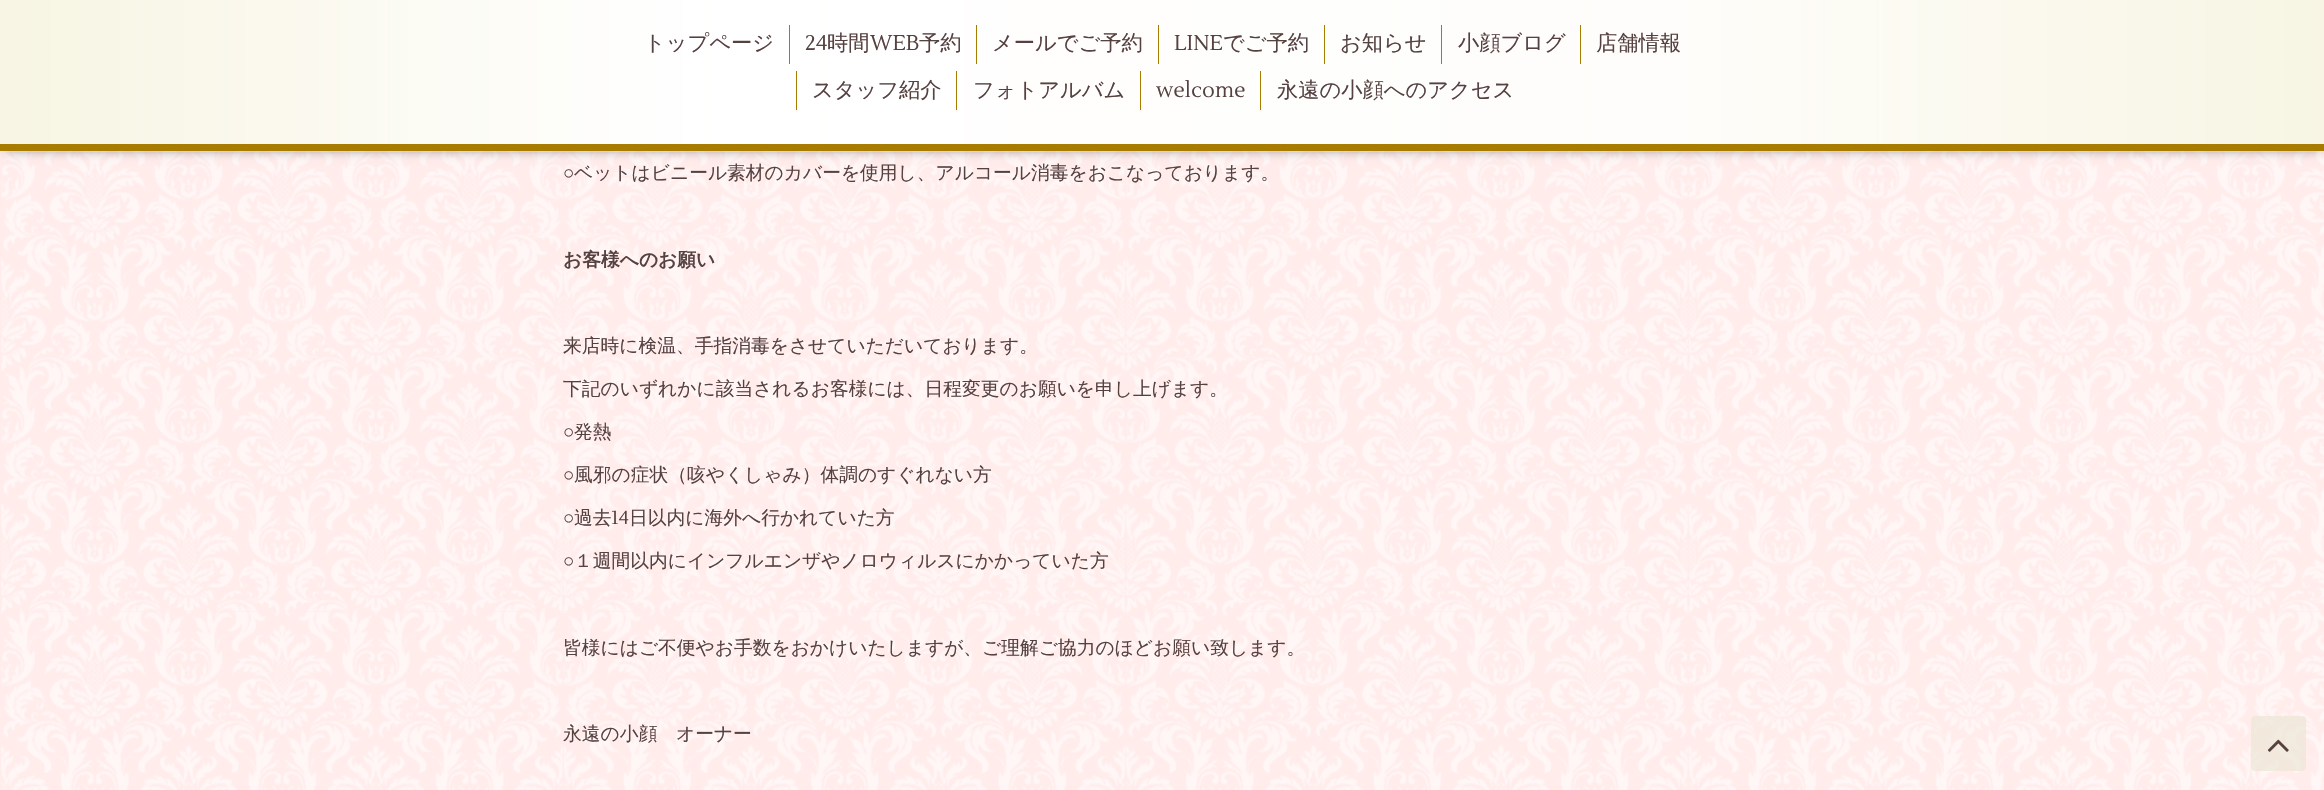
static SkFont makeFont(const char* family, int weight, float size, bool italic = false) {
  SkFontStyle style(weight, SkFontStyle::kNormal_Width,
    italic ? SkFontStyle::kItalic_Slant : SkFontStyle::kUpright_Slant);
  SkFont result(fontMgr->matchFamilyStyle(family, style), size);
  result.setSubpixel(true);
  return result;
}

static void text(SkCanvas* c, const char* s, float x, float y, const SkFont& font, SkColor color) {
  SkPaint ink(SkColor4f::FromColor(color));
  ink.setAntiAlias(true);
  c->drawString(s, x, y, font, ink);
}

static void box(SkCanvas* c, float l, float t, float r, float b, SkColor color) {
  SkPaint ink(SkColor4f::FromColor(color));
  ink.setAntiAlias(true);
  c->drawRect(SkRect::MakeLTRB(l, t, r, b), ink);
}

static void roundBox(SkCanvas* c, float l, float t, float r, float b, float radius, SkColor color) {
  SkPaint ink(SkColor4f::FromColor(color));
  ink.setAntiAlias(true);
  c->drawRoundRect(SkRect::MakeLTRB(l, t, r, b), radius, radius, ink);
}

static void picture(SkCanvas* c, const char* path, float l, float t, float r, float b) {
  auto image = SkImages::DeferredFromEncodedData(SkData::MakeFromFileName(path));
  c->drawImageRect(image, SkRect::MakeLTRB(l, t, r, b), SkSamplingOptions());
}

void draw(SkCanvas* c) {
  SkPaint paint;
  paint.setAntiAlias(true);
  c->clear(0xffffeceb);
  picture(c, "img_01.png", 1, 151, 2324, 790);
  paint.setColor(0x99000000);
  paint.setMaskFilter(SkMaskFilter::MakeBlur(kNormal_SkBlurStyle, 6));
  c->drawRect(SkRect::MakeLTRB(5, 6, 2320, 148), paint);
  paint.setMaskFilter(nullptr);
  picture(c, "img_02.png", 0, 0, 2324, 152);
  box(c, 0, 144, 2324, 151, 0xffa87c00);
  SkFont face1 = makeFont("WenQuanYi Zen Hei", 500, 21.25f);
  text(c, "トップページ", 644, 50, face1, 0xff564141);
  box(c, 789, 25, 790, 64, 0xffa87c00);
  SkFont face2 = makeFont("Lustria", 400, 21.25f);
  text(c, "24", 805, 50, face2, 0xff564141);
  text(c, "時間", 827, 50, face1, 0xff564141);
  text(c, "WEB", 870, 50, face2, 0xff564141);
  text(c, "予約", 919, 50, face1, 0xff564141);
  box(c, 976, 25, 977, 64, 0xffa87c00);
  text(c, "メールでご予約", 992, 50, face1, 0xff564141);
  box(c, 1158, 25, 1159, 64, 0xffa87c00);
  text(c, "LINE", 1174, 50, face2, 0xff564141);
  text(c, "でご予約", 1223, 50, face1, 0xff564141);
  box(c, 1324, 25, 1325, 64, 0xffa87c00);
  text(c, "お知らせ", 1340, 50, face1, 0xff564141);
  box(c, 1441, 25, 1442, 64, 0xffa87c00);
  text(c, "小顔ブログ", 1458, 50, face1, 0xff564141);
  box(c, 1580, 25, 1581, 64, 0xffa87c00);
  text(c, "店舗情報", 1596, 50, face1, 0xff564141);
  box(c, 796, 71, 797, 110, 0xffa87c00);
  text(c, "スタッフ紹介", 812, 97, face1, 0xff564141);
  box(c, 956, 71, 957, 110, 0xffa87c00);
  text(c, "フォトアルバム", 973, 97, face1, 0xff564141);
  box(c, 1140, 71, 1141, 110, 0xffa87c00);
  text(c, "welcome", 1156, 97, face2, 0xff564141);
  box(c, 1260, 71, 1261, 110, 0xffa87c00);
  text(c, "永遠の小顔へのアクセス", 1277, 97, face1, 0xff564141);
  SkFont face3 = makeFont("Liberation Sans", 400, 18.75f);
  text(c, "○", 563, 179, face3, 0xff564141);
  SkFont face4 = makeFont("WenQuanYi Zen Hei", 500, 18.75f);
  text(c, "ベットはビニール素材のカバーを使用し、アルコール消毒をおこなっております。", 574, 179, face4, 0xff564141);
  SkFont face5 = makeFont("WenQuanYi Zen Hei", 700, 18.75f);
  text(c, "お客様へのお願い", 563, 266, face5, 0xff564141);
  text(c, "来店時に検温、手指消毒をさせていただいております。", 563, 352, face4, 0xff564141);
  text(c, "下記のいずれかに該当されるお客様には、日程変更のお願いを申し上げます。", 563, 395, face4, 0xff564141);
  text(c, "○", 563, 438, face3, 0xff564141);
  text(c, "発熱", 574, 438, face4, 0xff564141);
  text(c, "○", 563, 481, face3, 0xff564141);
  text(c, "風邪の症状（咳やくしゃみ）体調のすぐれない方", 574, 481, face4, 0xff564141);
  text(c, "○", 563, 524, face3, 0xff564141);
  text(c, "過去", 574, 524, face4, 0xff564141);
  SkFont face6 = makeFont("Lustria", 400, 18.75f);
  text(c, "14", 611, 524, face6, 0xff564141);
  text(c, "日以内に海外へ行かれていた方", 629, 524, face4, 0xff564141);
  text(c, "○", 563, 567, face3, 0xff564141);
  text(c, "１週間以内にインフルエンザやノロウィルスにかかっていた方", 574, 567, face4, 0xff564141);
  text(c, "皆様にはご不便やお手数をおかけいたしますが、ご理解ご協力のほどお願い致します。", 563, 654, face4, 0xff564141);
  text(c, "永遠の小顔　オーナー", 563, 740, face4, 0xff564141);
  roundBox(c, 2251, 716, 2306, 771, 4, 0xb3ede6d6);
  picture(c, "img_03.png", 2267, 739, 2289, 752);
}
